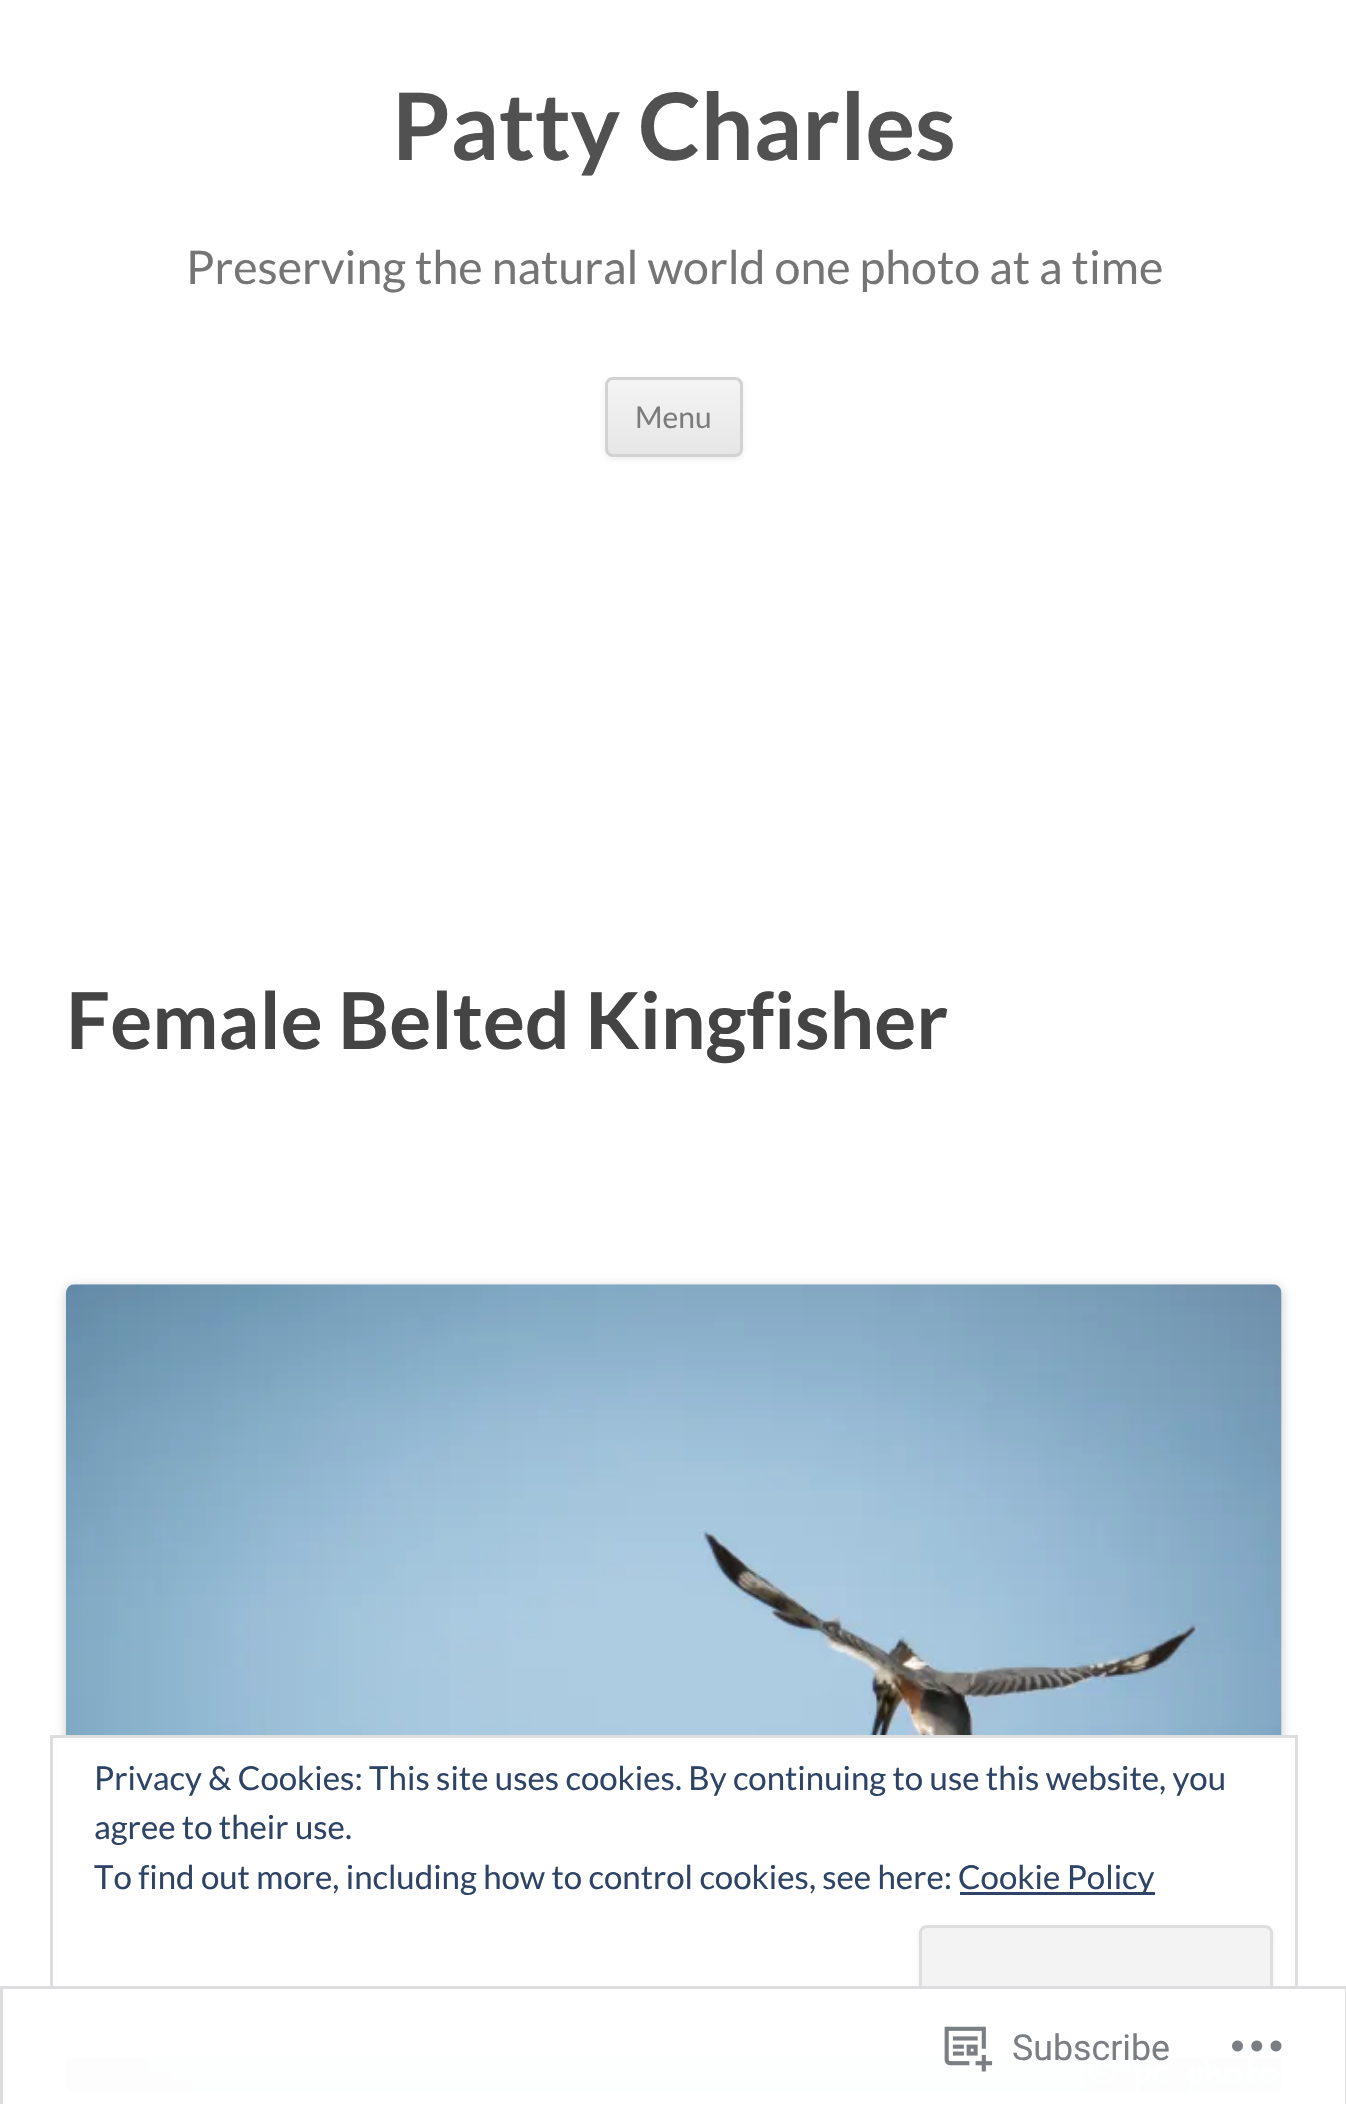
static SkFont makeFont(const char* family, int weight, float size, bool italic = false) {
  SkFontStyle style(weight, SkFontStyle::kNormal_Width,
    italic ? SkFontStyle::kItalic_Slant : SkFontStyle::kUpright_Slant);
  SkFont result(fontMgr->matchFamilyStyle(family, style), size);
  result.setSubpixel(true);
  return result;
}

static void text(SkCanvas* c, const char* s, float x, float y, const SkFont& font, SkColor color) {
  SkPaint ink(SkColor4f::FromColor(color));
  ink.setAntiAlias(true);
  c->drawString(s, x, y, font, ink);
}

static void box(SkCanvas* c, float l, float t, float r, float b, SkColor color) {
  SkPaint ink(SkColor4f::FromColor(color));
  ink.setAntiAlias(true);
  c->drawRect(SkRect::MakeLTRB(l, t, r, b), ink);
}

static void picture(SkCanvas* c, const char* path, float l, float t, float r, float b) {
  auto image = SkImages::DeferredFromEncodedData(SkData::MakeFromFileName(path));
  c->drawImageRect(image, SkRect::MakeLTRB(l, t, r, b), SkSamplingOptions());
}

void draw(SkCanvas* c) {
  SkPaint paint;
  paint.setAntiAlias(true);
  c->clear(0xffffffff);
  SkFont face1 = makeFont("Lato", 700, 93);
  text(c, "Patty Charles", 392, 160, face1, 0xff515151);
  SkFont face2 = makeFont("Lato", 400, 46.5f);
  text(c, "Preserving the natural world one photo at a time", 186, 284, face2, 0xff757575);
  paint.setColor(0x1a404040);
  paint.setMaskFilter(SkMaskFilter::MakeBlur(kNormal_SkBlurStyle, 3));
  c->drawRoundRect(SkRect::MakeLTRB(605, 380, 743, 459), 8, 8, paint);
  paint.setMaskFilter(nullptr);
  c->save();
  c->clipPath(SkPathBuilder().moveTo(613, 377).lineTo(735, 377).cubicTo(739.5f, 377, 743, 380.5f, 743, 385).lineTo(743, 449).cubicTo(743, 453.5f, 739.5f, 457, 735, 457).lineTo(613, 457).cubicTo(608.5f, 457, 605, 453.5f, 605, 449).lineTo(605, 385).cubicTo(605, 380.5f, 608.5f, 377, 613, 377).close().detach(), true);
  {
    const SkColor colors[] = {0xfff4f4f4, 0xffe6e6e6};
    const float stops[] = {0, 1};
    const SkPoint ends[] = {{674, 380}, {674, 454}};
    paint.setShader(SkGradientShader::MakeLinear(ends, colors, stops, 2, SkTileMode::kClamp));
    paint.setAlpha(255);
  }
  c->drawRect(SkRect::MakeLTRB(605, 380, 743, 454), paint);
  c->restore();
  paint.setStyle(SkPaint::kStroke_Style);
  paint.setStrokeWidth(3);
  paint.setShader(nullptr);
  paint.setColor(0xffd2d2d2);
  c->drawRoundRect(SkRect::MakeLTRB(606.5f, 378.5f, 741.5f, 455.5f), 6.5f, 6.5f, paint);
  SkFont face3 = makeFont("Lato", 400, 30);
  text(c, "Menu", 635, 428, face3, 0xff7c7c7c);
  SkFont face4 = makeFont("Lato", 700, 78.6f);
  text(c, "Female Belted Kingfisher", 66, 1049, face4, 0xff444444);
  paint.setStyle(SkPaint::kFill_Style);
  paint.setColor(0x33000000);
  paint.setMaskFilter(SkMaskFilter::MakeBlur(kNormal_SkBlurStyle, 5.5f));
  c->drawRoundRect(SkRect::MakeLTRB(66, 1287, 1282, 2096), 8, 8, paint);
  paint.setMaskFilter(nullptr);
  picture(c, "img_01.png", 66, 1284, 1282, 2093);
  box(c, 57, 1738, 1291, 2054, 0xffffffff);
  paint.setStyle(SkPaint::kStroke_Style);
  paint.setColor(0xffdedede);
  c->drawRect(SkRect::MakeLTRB(51.5f, 1736.5f, 1296.5f, 2055.5f), paint);
  SkFont face5 = makeFont("Lato", 400, 33);
  text(c, "Privacy & Cookies: This site uses cookies. By continuing to use this website, you", 94, 1790, face5, 0xff2e4467);
  text(c, "agree to their use.", 94, 1839, face5, 0xff2e4467);
  text(c, "To find out more, including how to control cookies, see here:", 94, 1889, face5, 0xff2e4467);
  box(c, 960, 1892, 1155, 1895, 0xff2e4467);
  text(c, "Cookie Policy", 958, 1889, face5, 0xff2e4467);
  paint.setStyle(SkPaint::kFill_Style);
  paint.setColor(0x1a404040);
  paint.setMaskFilter(SkMaskFilter::MakeBlur(kNormal_SkBlurStyle, 3));
  c->drawRoundRect(SkRect::MakeLTRB(919, 1928, 1273, 2035), 8, 8, paint);
  paint.setMaskFilter(nullptr);
  paint.setColor(0xfff3f3f3);
  c->drawRoundRect(SkRect::MakeLTRB(920.5f, 1926.5f, 1271.5f, 2030.5f), 6.5f, 6.5f, paint);
  paint.setStyle(SkPaint::kStroke_Style);
  paint.setColor(0xffdedede);
  c->drawRoundRect(SkRect::MakeLTRB(920.5f, 1926.5f, 1271.5f, 2030.5f), 6.5f, 6.5f, paint);
  box(c, 50, 1986, 1298, 2104, 0xfaffffff);
  paint.setColor(0xfadcdcde);
  c->drawRect(SkRect::MakeLTRB(1.5f, 1987.5f, 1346.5f, 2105.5f), paint);
  picture(c, "img_02.png", 944, 2026, 993, 2072);
  SkFont face6 = makeFont("Roboto", 400, 35.75f);
  text(c, "Subscribe", 1012, 2060, face6, 0xff7b7f84);
  picture(c, "img_03.png", 1232, 2040, 1282, 2052);
}
